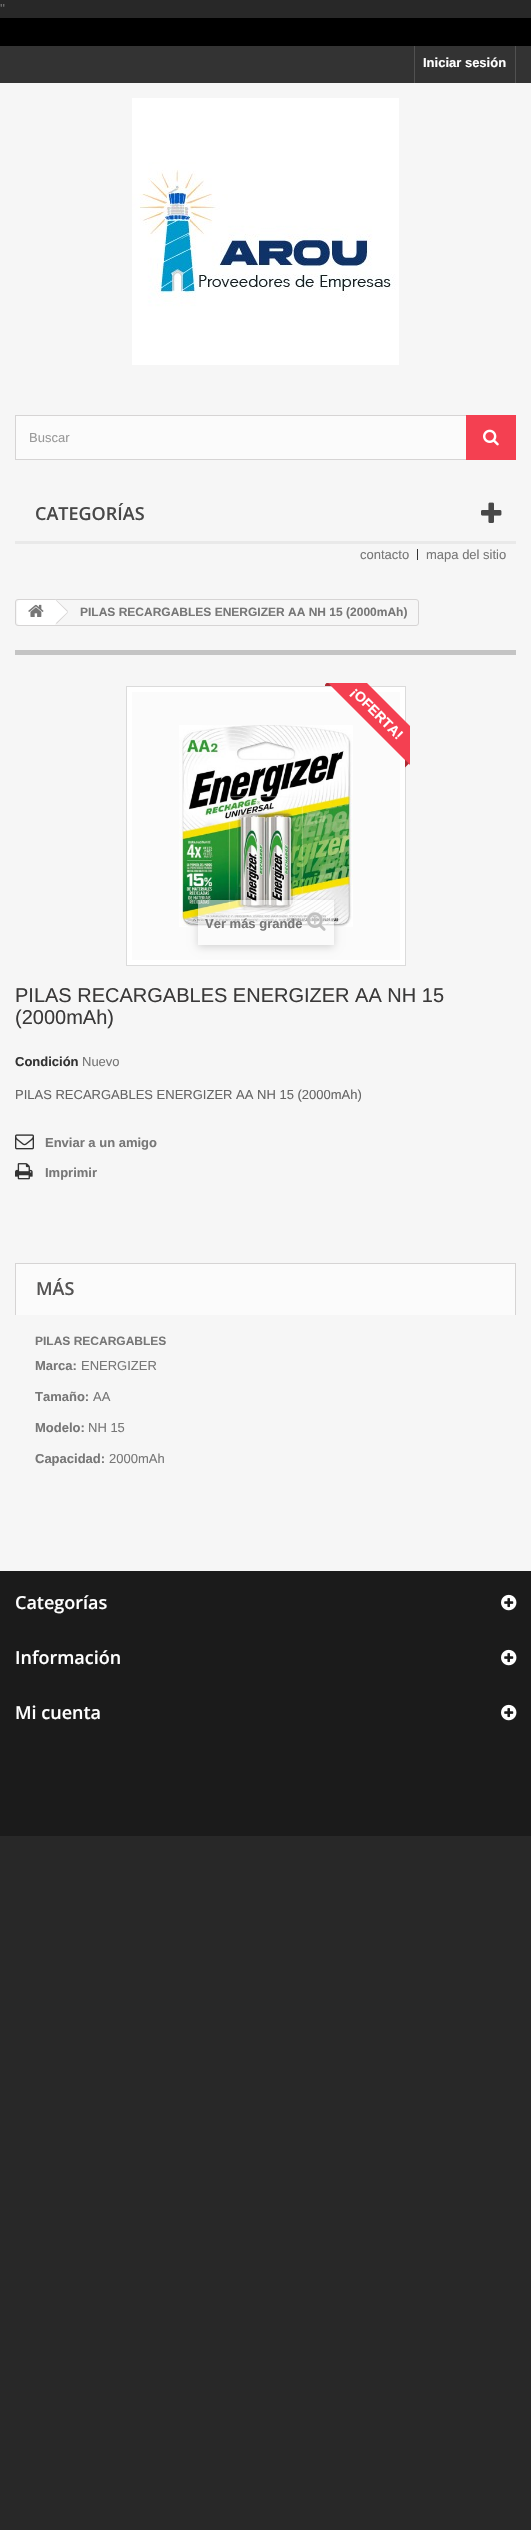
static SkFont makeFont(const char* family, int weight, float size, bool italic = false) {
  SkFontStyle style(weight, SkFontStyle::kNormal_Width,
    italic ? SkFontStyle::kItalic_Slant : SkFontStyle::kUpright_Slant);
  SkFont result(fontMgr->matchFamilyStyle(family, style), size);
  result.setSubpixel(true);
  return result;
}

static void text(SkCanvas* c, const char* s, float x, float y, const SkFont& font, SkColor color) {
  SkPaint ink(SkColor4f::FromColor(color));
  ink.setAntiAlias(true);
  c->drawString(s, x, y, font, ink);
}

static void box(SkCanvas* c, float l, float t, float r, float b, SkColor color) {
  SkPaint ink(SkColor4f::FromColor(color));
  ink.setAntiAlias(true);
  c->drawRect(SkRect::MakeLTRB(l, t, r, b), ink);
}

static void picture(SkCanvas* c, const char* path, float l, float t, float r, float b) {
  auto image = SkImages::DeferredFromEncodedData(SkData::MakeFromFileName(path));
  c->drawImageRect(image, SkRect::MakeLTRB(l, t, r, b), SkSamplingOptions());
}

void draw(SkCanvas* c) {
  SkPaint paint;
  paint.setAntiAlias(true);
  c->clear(0xff282828);
  SkFont face1 = makeFont("Liberation Sans", 400, 13);
  text(c, "''", 0, 13, face1, 0xff777777);
  box(c, 0, 83, 531, 1571, 0xfff6f6f6);
  box(c, 0, 18, 531, 46, 0xff000000);
  box(c, 0, 46, 531, 83, 0xff333333);
  box(c, 515, 46, 516, 83, 0xff515151);
  box(c, 414, 46, 415, 83, 0xff515151);
  SkFont face2 = makeFont("Liberation Sans", 700, 13);
  text(c, "Iniciar sesión", 423, 67, face2, 0xffffffff);
  picture(c, "img_01.png", 132, 98, 399, 365);
  box(c, 16, 416, 466, 459, 0xfffbfbfb);
  paint.setStyle(SkPaint::kStroke_Style);
  paint.setStrokeWidth(1);
  paint.setColor(0xffd6d4d4);
  c->drawRect(SkRect::MakeLTRB(15.5f, 415.5f, 515.5f, 459.5f), paint);
  text(c, "Buscar", 29, 442, face1, 0xff999999);
  box(c, 466, 415, 516, 460, 0xfff44051);
  picture(c, "img_02.png", 483, 429, 499, 446);
  box(c, 15, 541, 516, 544, 0xffe9e9e9);
  SkFont face3 = makeFont("Open Sans", 600, 18);
  text(c, "CATEGORÍAS", 35, 520, face3, 0xff484848);
  picture(c, "img_03.png", 481, 502, 502, 523);
  text(c, "contacto", 360, 559, face1, 0xff777777);
  box(c, 417, 549, 418, 560, 0xff333333);
  text(c, "mapa del sitio", 426, 559, face1, 0xff777777);
  c->drawRoundRect(SkRect::MakeLTRB(15.5f, 599.5f, 418.5f, 625.5f), 2.5f, 2.5f, paint);
  paint.setStyle(SkPaint::kFill_Style);
  paint.setColor(0xffffffff);
  c->drawPath(SkPathBuilder().moveTo(20, 600).lineTo(55, 600).lineTo(55, 625).lineTo(20, 625).cubicTo(18.5f, 625, 17, 623.5f, 17, 622).lineTo(17, 603).cubicTo(17, 601.5f, 18.5f, 600, 20, 600).close().detach(), paint);
  picture(c, "img_04.png", 28, 604, 44, 617);
  c->drawPath(SkPathBuilder().moveTo(57.5f, 600.5f).lineTo(67.5f, 610.5f).cubicTo(68, 611, 68, 612.5f, 67.5f, 613).lineTo(57.5f, 623).cubicTo(56.5f, 624, 55.5f, 624, 54.5f, 623).lineTo(44.5f, 613).cubicTo(44, 612.5f, 44, 611, 44.5f, 610.5f).lineTo(54.5f, 600.5f).cubicTo(55.5f, 599.5f, 56.5f, 599.5f, 57.5f, 600.5f).close().detach(), paint);
  paint.setColor(0xffd6d4d4);
  c->drawPath(SkPathBuilder().moveTo(56.5f, 600).lineTo(68, 611).lineTo(67.5f, 612).lineTo(56, 600.5f).close().moveTo(67.5f, 612).lineTo(68, 612.5f).lineTo(56.5f, 624).lineTo(56, 623).close().detach(), paint);
  SkFont face4 = makeFont("Liberation Sans", 700, 12);
  text(c, "PILAS RECARGABLES ENERGIZER AA NH 15 (2000mAh)", 80, 616, face4, 0xff777777);
  box(c, 15, 650, 516, 655, 0xffc4c4c4);
  paint.setColor(0xffffffff);
  c->drawRect(SkRect::MakeLTRB(126.5f, 686.5f, 405.5f, 965.5f), paint);
  paint.setStyle(SkPaint::kStroke_Style);
  paint.setColor(0xffdbdbdb);
  c->drawRect(SkRect::MakeLTRB(126.5f, 686.5f, 405.5f, 965.5f), paint);
  box(c, 132, 692, 400, 960, 0xfffbfbfb);
  picture(c, "img_05.png", 179, 725, 353, 927);
  c->save();
  c->clipRect(SkRect::MakeLTRB(325, 683, 410, 768));
  paint.setStyle(SkPaint::kFill_Style);
  paint.setColor(0xfff44051);
  c->drawPath(SkPathBuilder().moveTo(341, 657).lineTo(433, 749).lineTo(414, 769).lineTo(322, 677).close().detach(), paint);
  paint.setColor(0xffad2b34);
  c->drawPath(SkPathBuilder().moveTo(331.5f, 686).lineTo(323.5f, 686).lineTo(327.5f, 682).close().detach(), paint);
  c->restore();
  SkFont face5 = makeFont("Liberation Sans", 700, 14);
  c->save();
  c->rotate(45, 350, 693);
  text(c, "¡OFERTA!", 350, 693, face5, 0xffffffff);
  c->restore();
  c->drawPath(SkPathBuilder().moveTo(405, 767.5f).lineTo(405, 759.5f).lineTo(409, 763.5f).close().detach(), paint);
  c->save();
  c->clipPath(SkPathBuilder(SkPathFillType::kEvenOdd).moveTo(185, 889).lineTo(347, 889).lineTo(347, 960).lineTo(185, 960).close().moveTo(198, 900).lineTo(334, 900).lineTo(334, 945).lineTo(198, 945).close().detach(), true);
  paint.setColor(0x29000000);
  paint.setMaskFilter(SkMaskFilter::MakeBlur(kNormal_SkBlurStyle, 4));
  c->drawRect(SkRect::MakeLTRB(198, 902, 334, 947), paint);
  paint.setMaskFilter(nullptr);
  c->restore();
  box(c, 198, 900, 334, 927, 0x80ffffff);
  text(c, "Ver más grande", 205, 928, face2, 0xff777777);
  picture(c, "img_06.png", 307, 912, 326, 931);
  SkFont face6 = makeFont("Liberation Sans", 400, 20);
  text(c, "PILAS RECARGABLES ENERGIZER AA NH 15", 15, 1002, face6, 0xff3a3939);
  text(c, "(2000mAh)", 15, 1024, face6, 0xff3a3939);
  text(c, "Condición", 15, 1066, face2, 0xff333333);
  text(c, "Nuevo", 82, 1066, face1, 0xff777777);
  text(c, "PILAS RECARGABLES ENERGIZER AA NH 15 (2000mAh)", 15, 1099, face1, 0xff666666);
  picture(c, "img_07.png", 15, 1134, 34, 1150);
  text(c, "Enviar a un amigo", 45, 1147, face2, 0xff777777);
  picture(c, "img_08.png", 15, 1163, 33, 1180);
  text(c, "Imprimir", 45, 1177, face2, 0xff777777);
  box(c, 16, 1264, 515, 1315, 0xfffbfbfb);
  box(c, 15, 1263, 516, 1264, 0xffd6d4d4);
  box(c, 515, 1263, 516, 1315, 0xffd6d4d4);
  box(c, 15, 1263, 16, 1315, 0xffd6d4d4);
  text(c, "MÁS", 36, 1295, face3, 0xff555454);
  text(c, "PILAS RECARGABLES", 35, 1345, face4, 0xff777777);
  text(c, "Marca:", 35, 1370, face2, 0xff777777);
  text(c, "ENERGIZER", 81, 1370, face1, 0xff777777);
  text(c, "Tamaño:", 35, 1401, face2, 0xff777777);
  text(c, "AA", 93, 1401, face1, 0xff777777);
  text(c, "Modelo:", 35, 1432, face2, 0xff777777);
  text(c, "NH 15", 88, 1432, face1, 0xff777777);
  text(c, "Capacidad:", 35, 1463, face2, 0xff777777);
  text(c, "2000mAh", 109, 1463, face1, 0xff777777);
  box(c, 0, 1571, 531, 1836, 0xff1b1b1b);
  text(c, "Categorías", 15, 1609, face3, 0xffffffff);
  picture(c, "img_09.png", 501, 1594, 517, 1611);
  text(c, "Información", 15, 1664, face3, 0xffffffff);
  picture(c, "img_09.png", 501, 1649, 517, 1666);
  text(c, "Mi cuenta", 15, 1719, face3, 0xffffffff);
  picture(c, "img_09.png", 501, 1704, 517, 1721);
}
